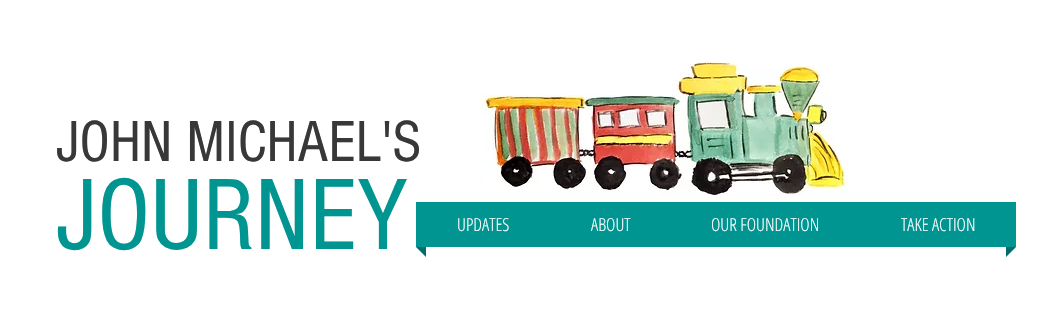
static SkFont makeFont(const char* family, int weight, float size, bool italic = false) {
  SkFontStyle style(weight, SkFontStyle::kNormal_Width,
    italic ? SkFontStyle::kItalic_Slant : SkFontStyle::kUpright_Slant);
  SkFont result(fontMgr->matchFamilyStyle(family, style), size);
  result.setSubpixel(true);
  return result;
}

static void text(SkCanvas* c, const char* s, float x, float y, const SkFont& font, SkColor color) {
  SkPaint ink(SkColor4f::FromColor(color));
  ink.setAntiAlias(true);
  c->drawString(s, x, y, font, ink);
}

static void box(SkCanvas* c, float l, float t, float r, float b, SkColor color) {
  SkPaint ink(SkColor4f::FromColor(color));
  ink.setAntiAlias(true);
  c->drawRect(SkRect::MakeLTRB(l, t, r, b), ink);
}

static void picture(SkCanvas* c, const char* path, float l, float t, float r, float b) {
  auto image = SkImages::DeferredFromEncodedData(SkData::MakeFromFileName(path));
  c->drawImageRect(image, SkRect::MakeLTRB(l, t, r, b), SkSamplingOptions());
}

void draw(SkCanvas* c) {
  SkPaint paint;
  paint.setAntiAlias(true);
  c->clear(0xffffffff);
  SkFont face1 = makeFont("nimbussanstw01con", 400, 60);
  text(c, "JOHN MICHAEL'S", 56, 161, face1, 0xff383838);
  SkFont face2 = makeFont("nimbussanstw01con", 400, 105);
  text(c, "JOURNEY", 56, 249, face2, 0xff009591);
  picture(c, "img_01.png", 480, 61, 850, 195);
  box(c, 416, 202, 1016, 247, 0xff009591);
  SkFont face3 = makeFont("Open Sans Condensed", 300, 18);
  text(c, "UPDATES", 457, 231, face3, 0xffffffff);
  text(c, "ABOUT", 591, 231, face3, 0xffffffff);
  text(c, "OUR FOUNDATION", 711, 231, face3, 0xffffffff);
  text(c, "TAKE ACTION", 901, 231, face3, 0xffffffff);
  paint.setColor(0xff006c6d);
  c->drawPath(SkPathBuilder().moveTo(416, 247).lineTo(426, 247).lineTo(426, 257).close().detach(), paint);
  c->drawPath(SkPathBuilder().moveTo(1006, 247).lineTo(1016, 247).lineTo(1006, 257).close().detach(), paint);
}
